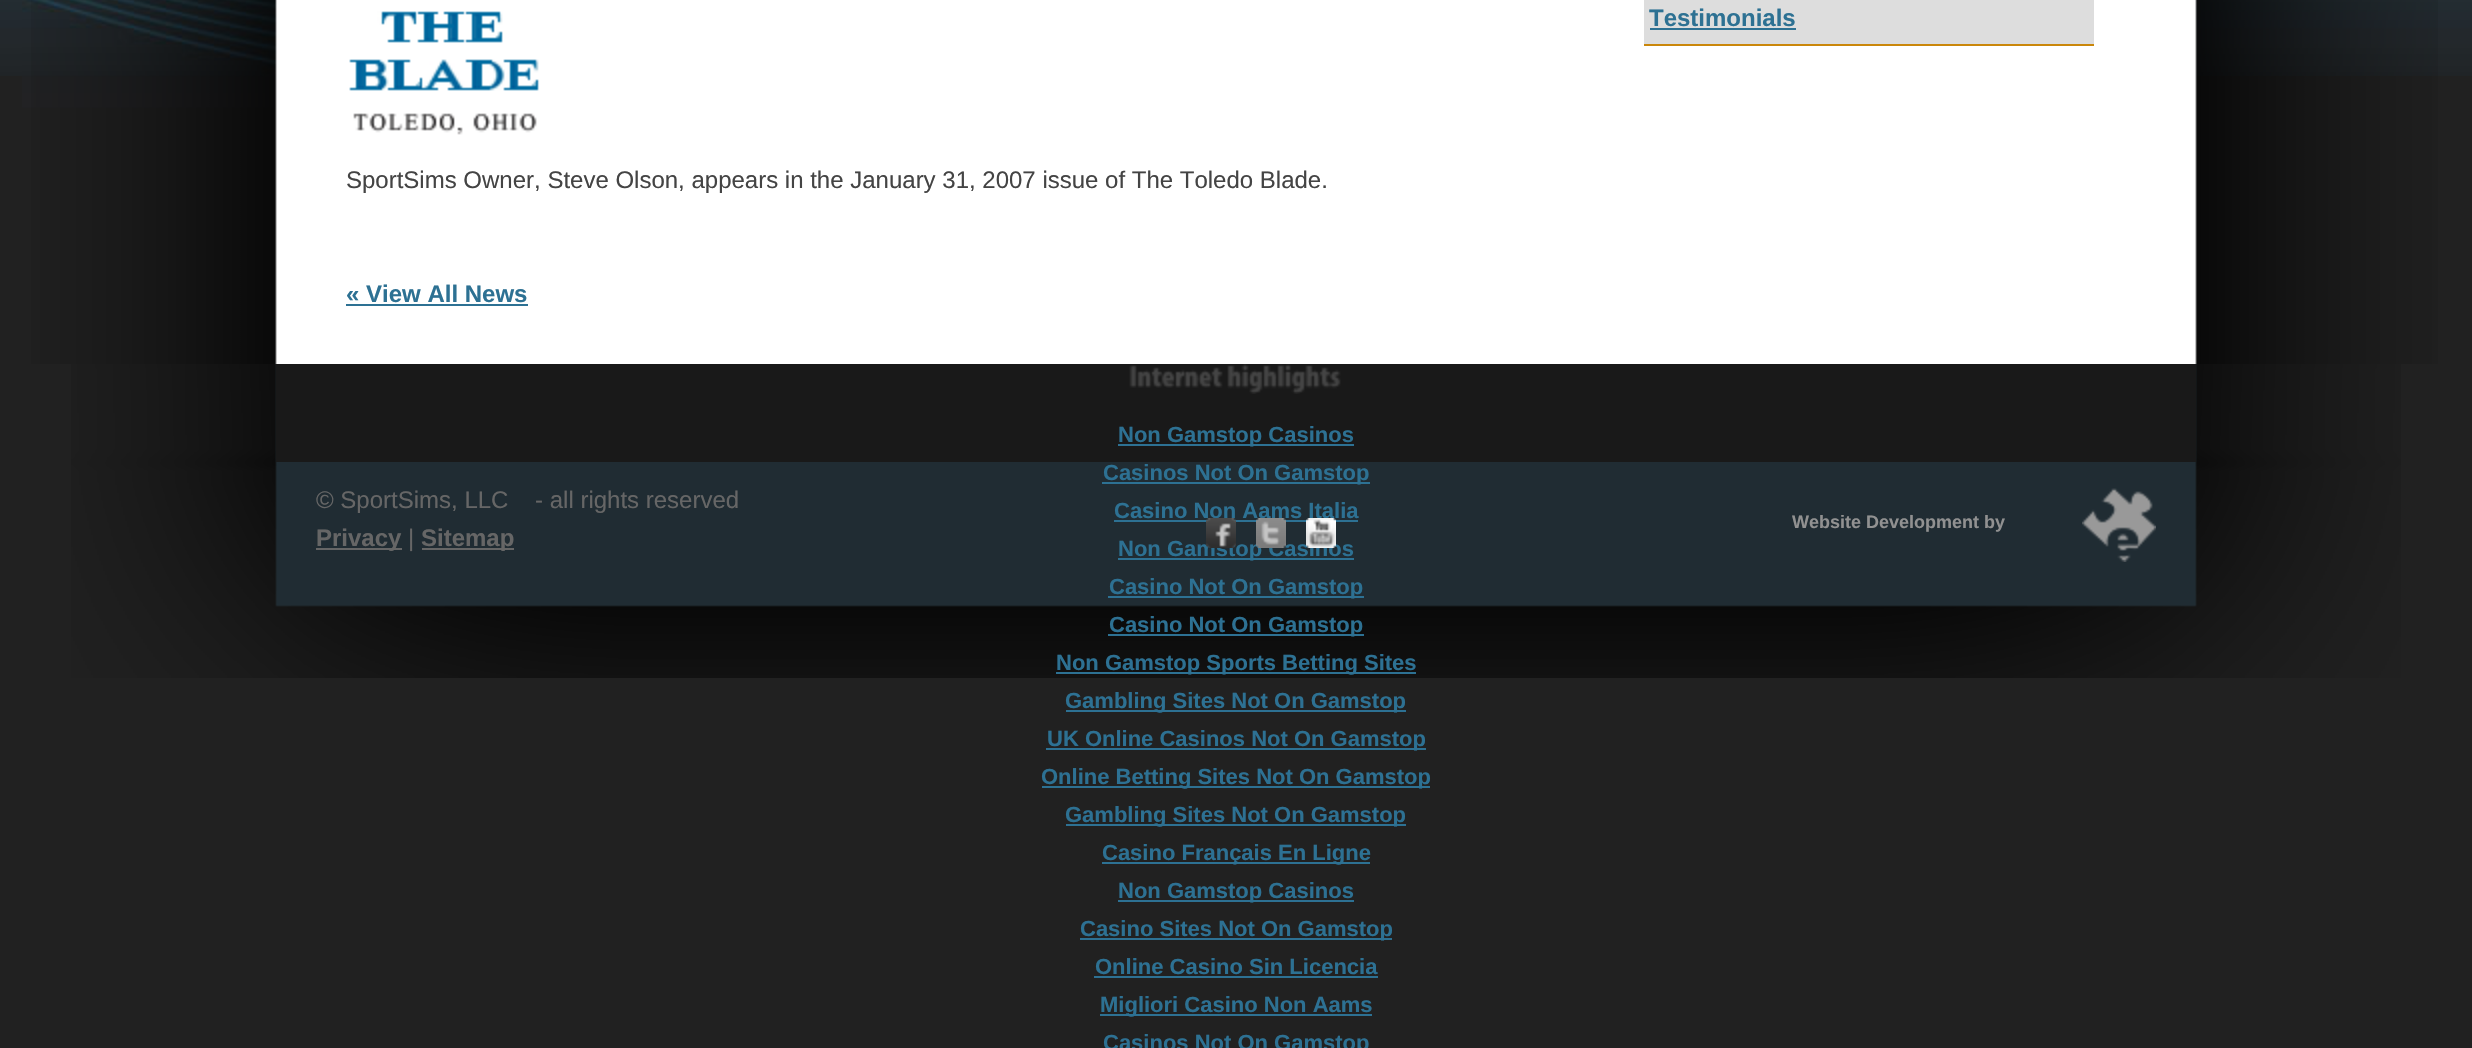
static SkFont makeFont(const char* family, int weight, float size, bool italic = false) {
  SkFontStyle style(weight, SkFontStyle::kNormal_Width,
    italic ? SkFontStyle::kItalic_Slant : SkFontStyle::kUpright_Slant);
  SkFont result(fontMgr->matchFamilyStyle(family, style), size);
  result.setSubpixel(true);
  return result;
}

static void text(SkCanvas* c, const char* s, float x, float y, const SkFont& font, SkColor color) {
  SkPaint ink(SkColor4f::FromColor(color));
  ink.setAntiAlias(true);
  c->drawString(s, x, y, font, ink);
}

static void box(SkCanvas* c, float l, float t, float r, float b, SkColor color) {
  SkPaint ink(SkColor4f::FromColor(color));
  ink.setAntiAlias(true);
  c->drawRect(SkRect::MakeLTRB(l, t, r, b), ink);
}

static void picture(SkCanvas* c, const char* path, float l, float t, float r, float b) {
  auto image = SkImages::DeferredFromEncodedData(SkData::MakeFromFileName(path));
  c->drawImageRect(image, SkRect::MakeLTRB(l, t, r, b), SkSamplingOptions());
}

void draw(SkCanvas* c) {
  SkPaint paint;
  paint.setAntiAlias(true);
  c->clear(0xff212121);
  picture(c, "img_01.png", 0, 0, 2472, 76);
  picture(c, "img_02.png", 22, 0, 277, 108);
  picture(c, "img_03.png", 31, 0, 2438, 364);
  box(c, 1644, 0, 2094, 44, 0xffdddddd);
  box(c, 1644, 44, 2094, 46, 0xffca870b);
  SkFont face1 = makeFont("Liberation Sans", 700, 24);
  text(c, "Testimonials", 1649, 26, face1, 0xff2d7193);
  box(c, 1650, 28, 1796, 30, 0xff2d7193);
  picture(c, "img_04.png", 349, 11, 539, 135);
  SkFont face2 = makeFont("Liberation Sans", 400, 24);
  text(c, "SportSims Owner, Steve Olson, appears in the January 31, 2007 issue of The Toledo Blade.", 346, 188, face2, 0xff444444);
  text(c, "« View All News", 346, 302, face1, 0xff2d7193);
  box(c, 346, 304, 528, 306, 0xff2d7193);
  picture(c, "img_05.png", 71, 364, 2401, 678);
  box(c, 276, 364, 2196, 462, 0xff191919);
  picture(c, "img_06.png", 1129, 365, 1223, 388);
  picture(c, "img_07.png", 1227, 364, 1341, 394);
  box(c, 1118, 444, 1354, 446, 0xff2d7193);
  SkFont face3 = makeFont("Liberation Sans", 700, 22);
  text(c, "Non Gamstop Casinos", 1118, 442, face3, 0xff2d7193);
  box(c, 1102, 482, 1370, 484, 0xff2d7193);
  text(c, "Casinos Not On Gamstop", 1103, 480, face3, 0xff2d7193);
  text(c, "Casino Non Aams Italia", 1114, 518, face3, 0xff2d7193);
  box(c, 1114, 520, 1358, 522, 0xff2d7193);
  box(c, 1118, 558, 1354, 560, 0xff2d7193);
  text(c, "Non Gamstop Casinos", 1118, 556, face3, 0xff2d7193);
  box(c, 1108, 596, 1364, 598, 0xff2d7193);
  text(c, "Casino Not On Gamstop", 1109, 594, face3, 0xff2d7193);
  box(c, 1108, 634, 1364, 636, 0xff2d7193);
  text(c, "Casino Not On Gamstop", 1109, 632, face3, 0xff2d7193);
  box(c, 1056, 672, 1416, 674, 0xff2d7193);
  text(c, "Non Gamstop Sports Betting Sites", 1056, 670, face3, 0xff2d7193);
  box(c, 1066, 710, 1406, 712, 0xff2d7193);
  text(c, "Gambling Sites Not On Gamstop", 1065, 708, face3, 0xff2d7193);
  box(c, 1046, 748, 1426, 750, 0xff2d7193);
  text(c, "UK Online Casinos Not On Gamstop", 1047, 746, face3, 0xff2d7193);
  box(c, 1042, 786, 1430, 788, 0xff2d7193);
  text(c, "Online Betting Sites Not On Gamstop", 1041, 784, face3, 0xff2d7193);
  box(c, 1066, 824, 1406, 826, 0xff2d7193);
  text(c, "Gambling Sites Not On Gamstop", 1065, 822, face3, 0xff2d7193);
  box(c, 1102, 862, 1370, 864, 0xff2d7193);
  text(c, "Casino Français En Ligne", 1102, 860, face3, 0xff2d7193);
  box(c, 1118, 900, 1354, 902, 0xff2d7193);
  text(c, "Non Gamstop Casinos", 1118, 898, face3, 0xff2d7193);
  box(c, 1080, 938, 1392, 940, 0xff2d7193);
  text(c, "Casino Sites Not On Gamstop", 1080, 936, face3, 0xff2d7193);
  text(c, "Online Casino Sin Licencia", 1095, 974, face3, 0xff2d7193);
  box(c, 1094, 976, 1378, 978, 0xff2d7193);
  box(c, 1100, 1014, 1372, 1016, 0xff2d7193);
  text(c, "Migliori Casino Non Aams", 1100, 1012, face3, 0xff2d7193);
  text(c, "Casinos Not On Gamstop", 1103, 1050, face3, 0xff2d7193);
  text(c, "© SportSims, LLC    - all rights reserved", 316, 508, face2, 0xff666666);
  box(c, 316, 548, 402, 550, 0xff666666);
  text(c, "Privacy", 316, 546, face1, 0xff666666);
  text(c, "|", 408, 546, face2, 0xff666666);
  box(c, 422, 548, 514, 550, 0xff666666);
  text(c, "Sitemap", 421, 546, face1, 0xff666666);
  picture(c, "img_08.png", 1206, 518, 1236, 548);
  picture(c, "img_09.png", 1256, 518, 1286, 548);
  picture(c, "img_10.png", 1306, 518, 1336, 548);
  SkFont face4 = makeFont("Liberation Sans", 700, 18);
  text(c, "Website Development by", 1792, 528, face4, 0xff919191);
  picture(c, "img_11.png", 2082, 488, 2156, 562);
}
